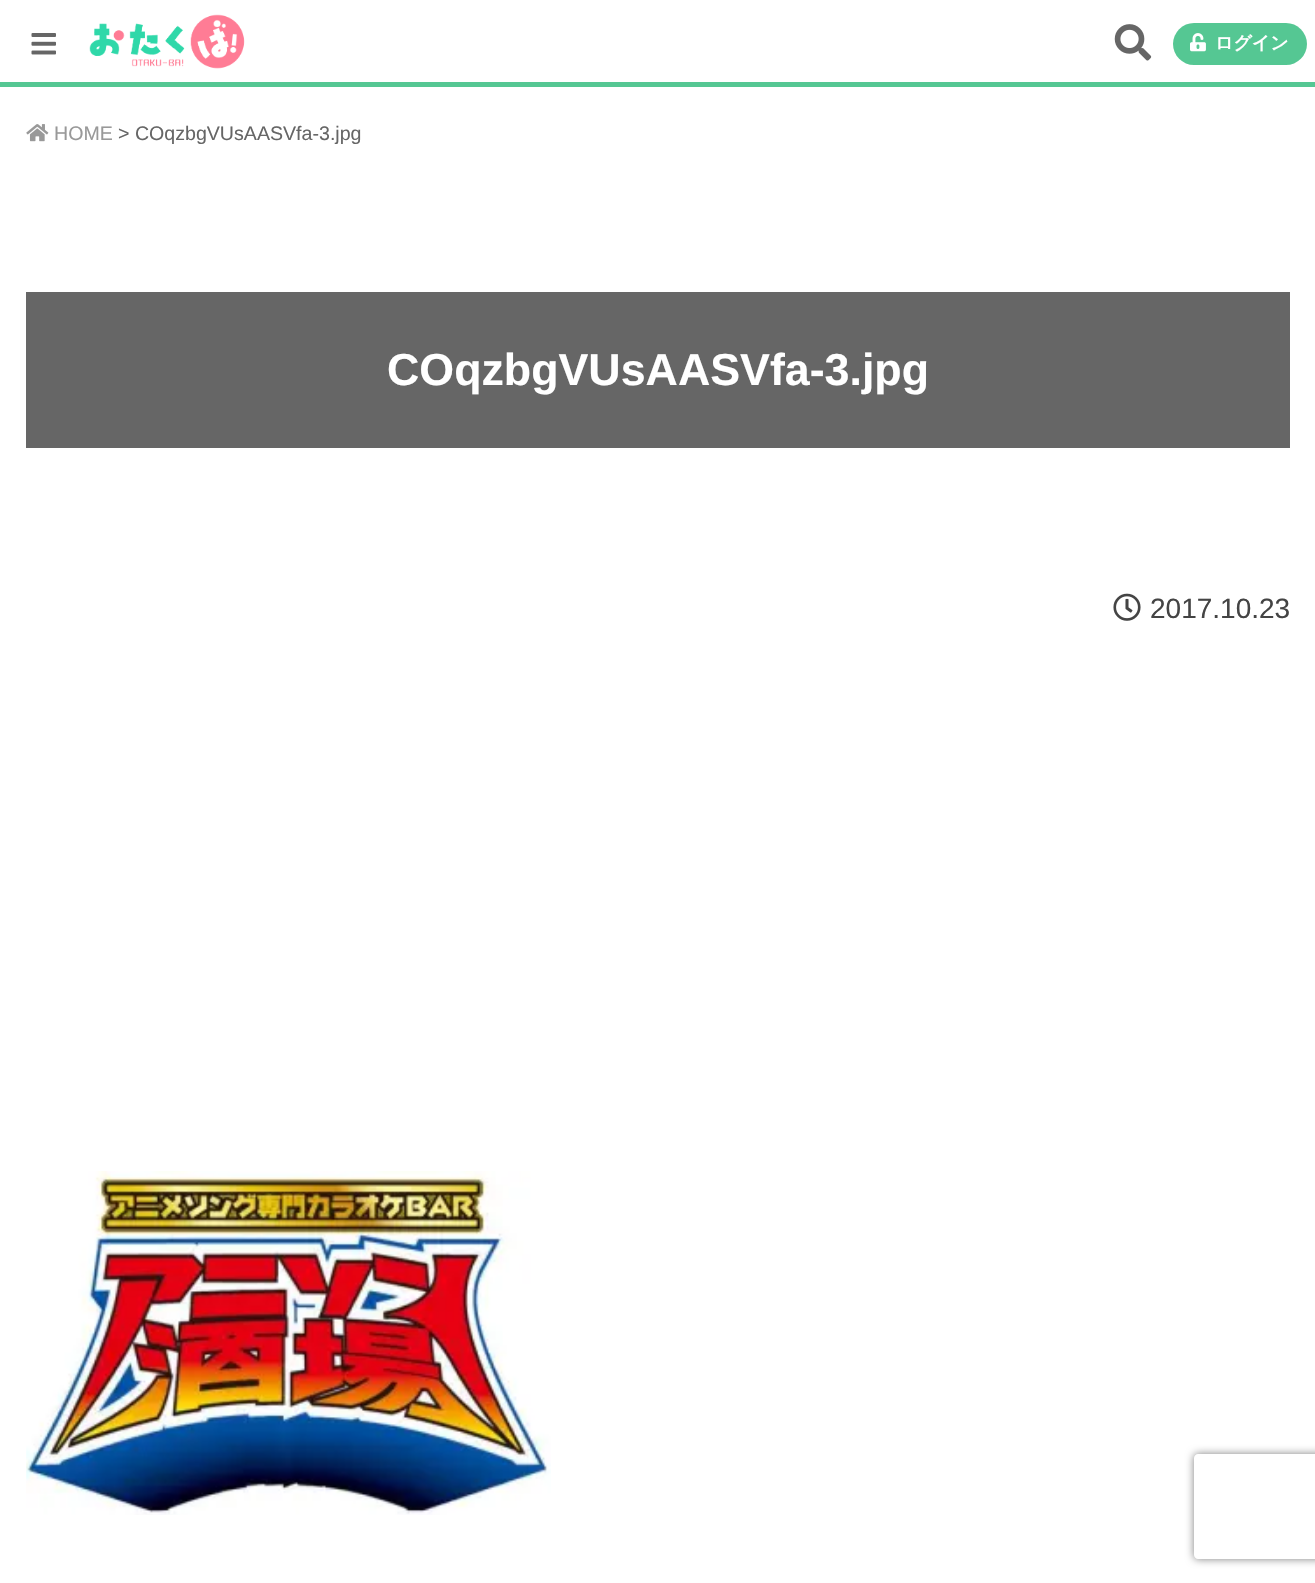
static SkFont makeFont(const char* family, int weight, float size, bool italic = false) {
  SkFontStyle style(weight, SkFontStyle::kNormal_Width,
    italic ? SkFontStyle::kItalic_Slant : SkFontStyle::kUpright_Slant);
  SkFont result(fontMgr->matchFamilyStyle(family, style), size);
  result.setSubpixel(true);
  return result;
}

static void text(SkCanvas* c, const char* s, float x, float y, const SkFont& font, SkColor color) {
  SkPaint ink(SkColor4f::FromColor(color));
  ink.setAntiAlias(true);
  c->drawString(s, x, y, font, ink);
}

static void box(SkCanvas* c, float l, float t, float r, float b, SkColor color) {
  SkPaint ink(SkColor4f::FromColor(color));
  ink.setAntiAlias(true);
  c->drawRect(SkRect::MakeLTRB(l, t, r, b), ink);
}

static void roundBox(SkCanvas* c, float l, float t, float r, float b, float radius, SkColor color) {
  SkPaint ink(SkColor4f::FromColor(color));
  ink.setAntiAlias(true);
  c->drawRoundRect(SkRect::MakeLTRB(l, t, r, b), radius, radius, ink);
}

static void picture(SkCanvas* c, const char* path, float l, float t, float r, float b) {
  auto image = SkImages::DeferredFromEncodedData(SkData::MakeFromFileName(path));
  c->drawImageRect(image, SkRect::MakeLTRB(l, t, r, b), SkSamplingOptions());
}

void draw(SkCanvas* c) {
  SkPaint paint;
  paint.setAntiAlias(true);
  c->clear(0xffffffff);
  box(c, 0, 82, 1315, 87, 0xff55c793);
  picture(c, "img_01.png", 31, 33, 56, 55);
  picture(c, "img_02.png", 89, 14, 245, 69);
  picture(c, "img_03.png", 1114, 24, 1152, 61);
  roundBox(c, 1173, 23, 1307, 65, 21, 0xff55c793);
  picture(c, "img_04.png", 1190, 33, 1206, 52);
  SkFont face1 = makeFont("WenQuanYi Zen Hei", 700, 18);
  text(c, "ログイン", 1215, 49, face1, 0xffffffff);
  picture(c, "img_05.png", 26, 124, 49, 142);
  SkFont face2 = makeFont("Liberation Sans", 400, 19.6f);
  text(c, "HOME", 54, 140, face2, 0xff999999);
  text(c, "> COqzbgVUsAASVfa-3.jpg", 118, 140, face2, 0xff666666);
  box(c, 26, 292, 1290, 448, 0xff666666);
  SkFont face3 = makeFont("Liberation Sans", 700, 44.75f);
  text(c, "COqzbgVUsAASVfa-3.jpg", 387, 385, face3, 0xffffffff);
  picture(c, "img_06.png", 1113, 593, 1141, 621);
  SkFont face4 = makeFont("Liberation Sans", 400, 28);
  text(c, "2017.10.23", 1150, 618, face4, 0xff444444);
  picture(c, "img_07.png", 26, 1171, 551, 1515);
  c->save();
  c->clipPath(SkPathBuilder(SkPathFillType::kEvenOdd).moveTo(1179, 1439).lineTo(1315, 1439).lineTo(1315, 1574).lineTo(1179, 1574).close().moveTo(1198, 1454).lineTo(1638, 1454).cubicTo(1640, 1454, 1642, 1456, 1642, 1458).lineTo(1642, 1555).cubicTo(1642, 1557, 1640, 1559, 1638, 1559).lineTo(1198, 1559).cubicTo(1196, 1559, 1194, 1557, 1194, 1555).lineTo(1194, 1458).cubicTo(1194, 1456, 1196, 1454, 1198, 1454).close().detach(), true);
  paint.setColor(0xff808080);
  paint.setMaskFilter(SkMaskFilter::MakeBlur(kNormal_SkBlurStyle, 4.5f));
  c->drawRoundRect(SkRect::MakeLTRB(1194, 1454, 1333, 1559), 4, 4, paint);
  paint.setMaskFilter(nullptr);
  c->restore();
}
